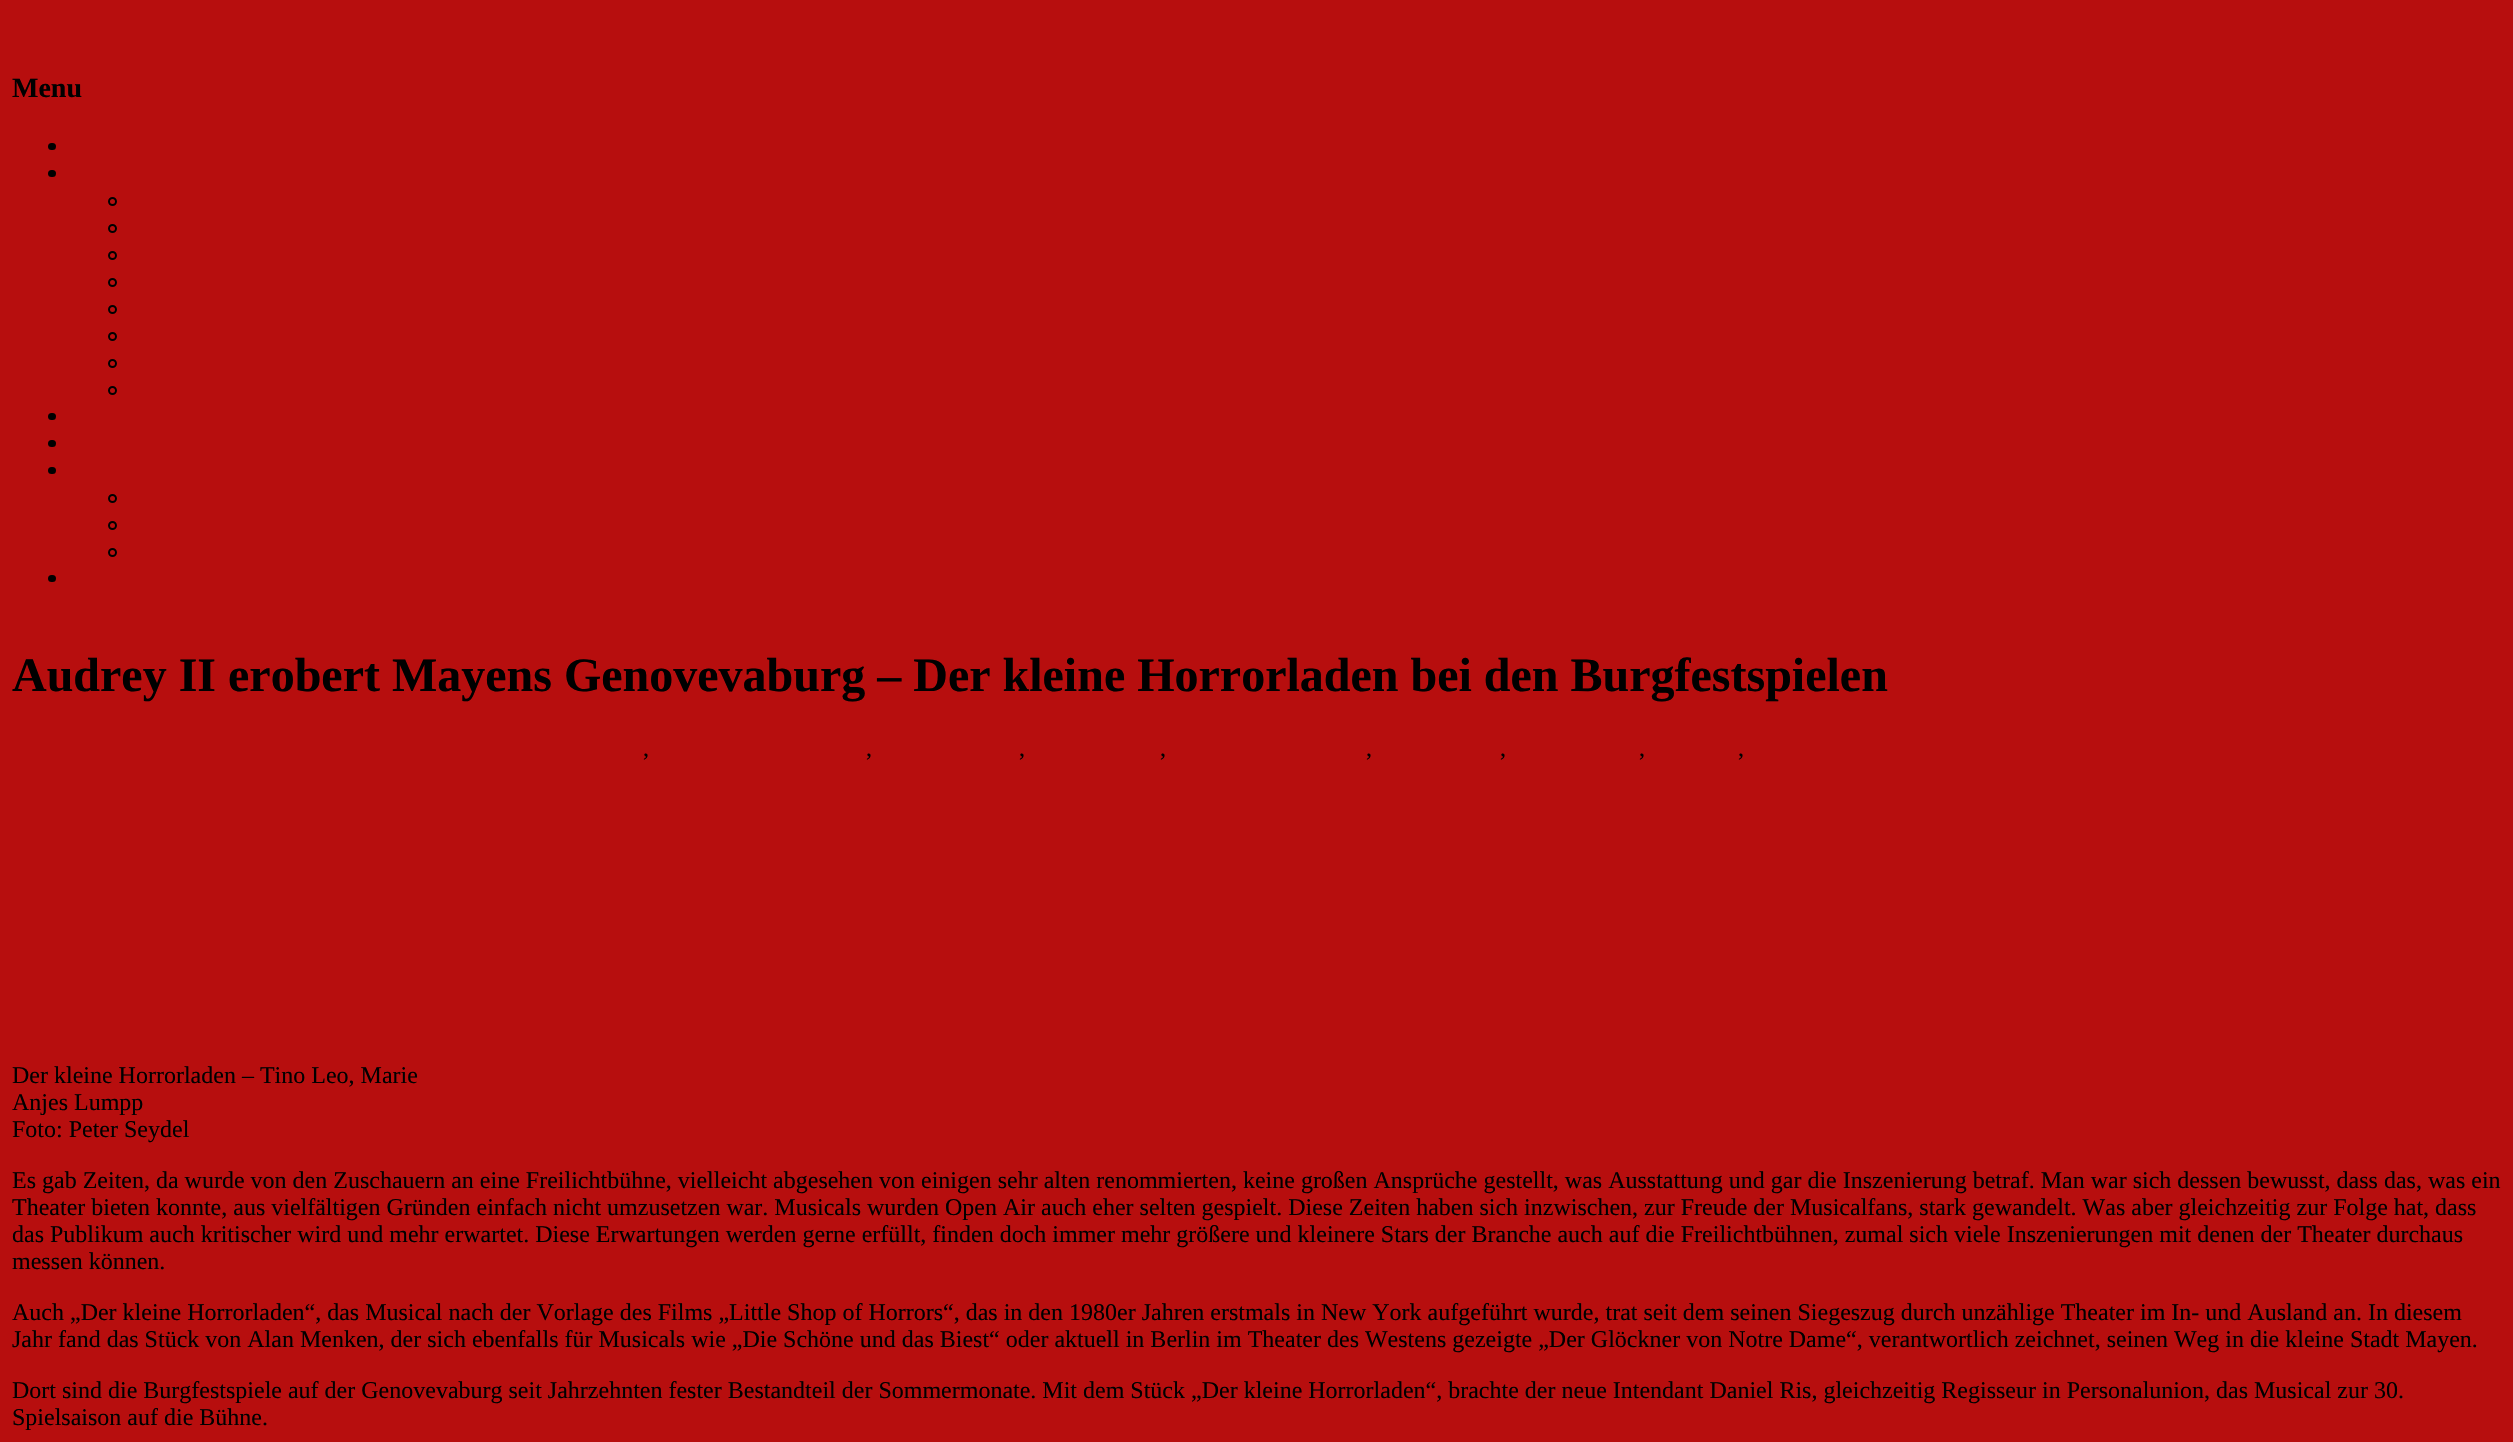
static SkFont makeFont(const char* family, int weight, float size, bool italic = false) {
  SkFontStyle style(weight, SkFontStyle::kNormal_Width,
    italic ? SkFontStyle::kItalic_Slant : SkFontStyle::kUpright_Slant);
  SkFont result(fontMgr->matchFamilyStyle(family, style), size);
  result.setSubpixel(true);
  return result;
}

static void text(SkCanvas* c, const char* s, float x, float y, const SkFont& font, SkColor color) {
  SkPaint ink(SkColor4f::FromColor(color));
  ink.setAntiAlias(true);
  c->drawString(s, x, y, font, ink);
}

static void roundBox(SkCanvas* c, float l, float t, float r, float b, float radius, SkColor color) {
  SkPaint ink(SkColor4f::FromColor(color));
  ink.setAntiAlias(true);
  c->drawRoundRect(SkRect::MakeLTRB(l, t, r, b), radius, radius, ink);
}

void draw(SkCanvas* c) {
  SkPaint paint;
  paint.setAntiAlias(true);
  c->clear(0xffb70e0e);
  SkFont face1 = makeFont("Liberation Serif", 700, 28);
  text(c, "Menu", 12, 97, face1, 0xff000000);
  roundBox(c, 48, 143, 56, 150, 3.5f, 0xff000000);
  roundBox(c, 48, 170, 56, 177, 3.5f, 0xff000000);
  paint.setStyle(SkPaint::kStroke_Style);
  paint.setStrokeWidth(2);
  paint.setColor(0xff000000);
  c->drawCircle(112.5f, 201.5f, 3.5f, paint);
  c->drawCircle(112.5f, 228.5f, 3.5f, paint);
  c->drawCircle(112.5f, 255.5f, 3.5f, paint);
  c->drawCircle(112.5f, 282.5f, 3.5f, paint);
  c->drawCircle(112.5f, 309.5f, 3.5f, paint);
  c->drawCircle(112.5f, 336.5f, 3.5f, paint);
  c->drawCircle(112.5f, 363.5f, 3.5f, paint);
  c->drawCircle(112.5f, 390.5f, 3.5f, paint);
  roundBox(c, 48, 413, 56, 420, 3.5f, 0xff000000);
  roundBox(c, 48, 440, 56, 447, 3.5f, 0xff000000);
  roundBox(c, 48, 467, 56, 474, 3.5f, 0xff000000);
  c->drawCircle(112.5f, 498.5f, 3.5f, paint);
  c->drawCircle(112.5f, 525.5f, 3.5f, paint);
  c->drawCircle(112.5f, 552.5f, 3.5f, paint);
  roundBox(c, 48, 575, 56, 582, 3.5f, 0xff000000);
  SkFont face2 = makeFont("Liberation Serif", 700, 48);
  text(c, "Audrey II erobert Mayens Genovevaburg – Der kleine Horrorladen bei den Burgfestspielen", 12, 691, face2, 0xff000000);
  SkFont face3 = makeFont("Liberation Serif", 400, 24);
  text(c, ",", 643, 756, face3, 0xff000000);
  text(c, ",", 866, 756, face3, 0xff000000);
  text(c, ",", 1019, 756, face3, 0xff000000);
  text(c, ",", 1160, 756, face3, 0xff000000);
  text(c, ",", 1366, 756, face3, 0xff000000);
  text(c, ",", 1500, 756, face3, 0xff000000);
  text(c, ",", 1639, 756, face3, 0xff000000);
  text(c, ",", 1738, 756, face3, 0xff000000);
  text(c, "Der kleine Horrorladen – Tino Leo, Marie", 12, 1083, face3, 0xff000000);
  text(c, "Anjes Lumpp", 12, 1110, face3, 0xff000000);
  text(c, "Foto: Peter Seydel", 12, 1137, face3, 0xff000000);
  text(c, "Es gab Zeiten, da wurde von den Zuschauern an eine Freilichtbühne, vielleicht abgesehen von einigen sehr alten renommierten, keine großen Ansprüche gestellt, was Ausstattung und gar die Inszenierung betraf. Man war sich dessen bewusst, dass das, was ein", 12, 1188, face3, 0xff000000);
  text(c, "Theater bieten konnte, aus vielfältigen Gründen einfach nicht umzusetzen war. Musicals wurden Open Air auch eher selten gespielt. Diese Zeiten haben sich inzwischen, zur Freude der Musicalfans, stark gewandelt. Was aber gleichzeitig zur Folge hat, dass", 12, 1215, face3, 0xff000000);
  text(c, "das Publikum auch kritischer wird und mehr erwartet. Diese Erwartungen werden gerne erfüllt, finden doch immer mehr größere und kleinere Stars der Branche auch auf die Freilichtbühnen, zumal sich viele Inszenierungen mit denen der Theater durchaus", 12, 1242, face3, 0xff000000);
  text(c, "messen können.", 12, 1269, face3, 0xff000000);
  text(c, "Auch „Der kleine Horrorladen“, das Musical nach der Vorlage des Films „Little Shop of Horrors“, das in den 1980er Jahren erstmals in New York aufgeführt wurde, trat seit dem seinen Siegeszug durch unzählige Theater im In- und Ausland an. In diesem", 12, 1320, face3, 0xff000000);
  text(c, "Jahr fand das Stück von Alan Menken, der sich ebenfalls für Musicals wie „Die Schöne und das Biest“ oder aktuell in Berlin im Theater des Westens gezeigte „Der Glöckner von Notre Dame“, verantwortlich zeichnet, seinen Weg in die kleine Stadt Mayen.", 12, 1347, face3, 0xff000000);
  text(c, "Dort sind die Burgfestspiele auf der Genovevaburg seit Jahrzehnten fester Bestandteil der Sommermonate. Mit dem Stück „Der kleine Horrorladen“, brachte der neue Intendant Daniel Ris, gleichzeitig Regisseur in Personalunion, das Musical zur 30.", 12, 1398, face3, 0xff000000);
  text(c, "Spielsaison auf die Bühne.", 12, 1425, face3, 0xff000000);
}
